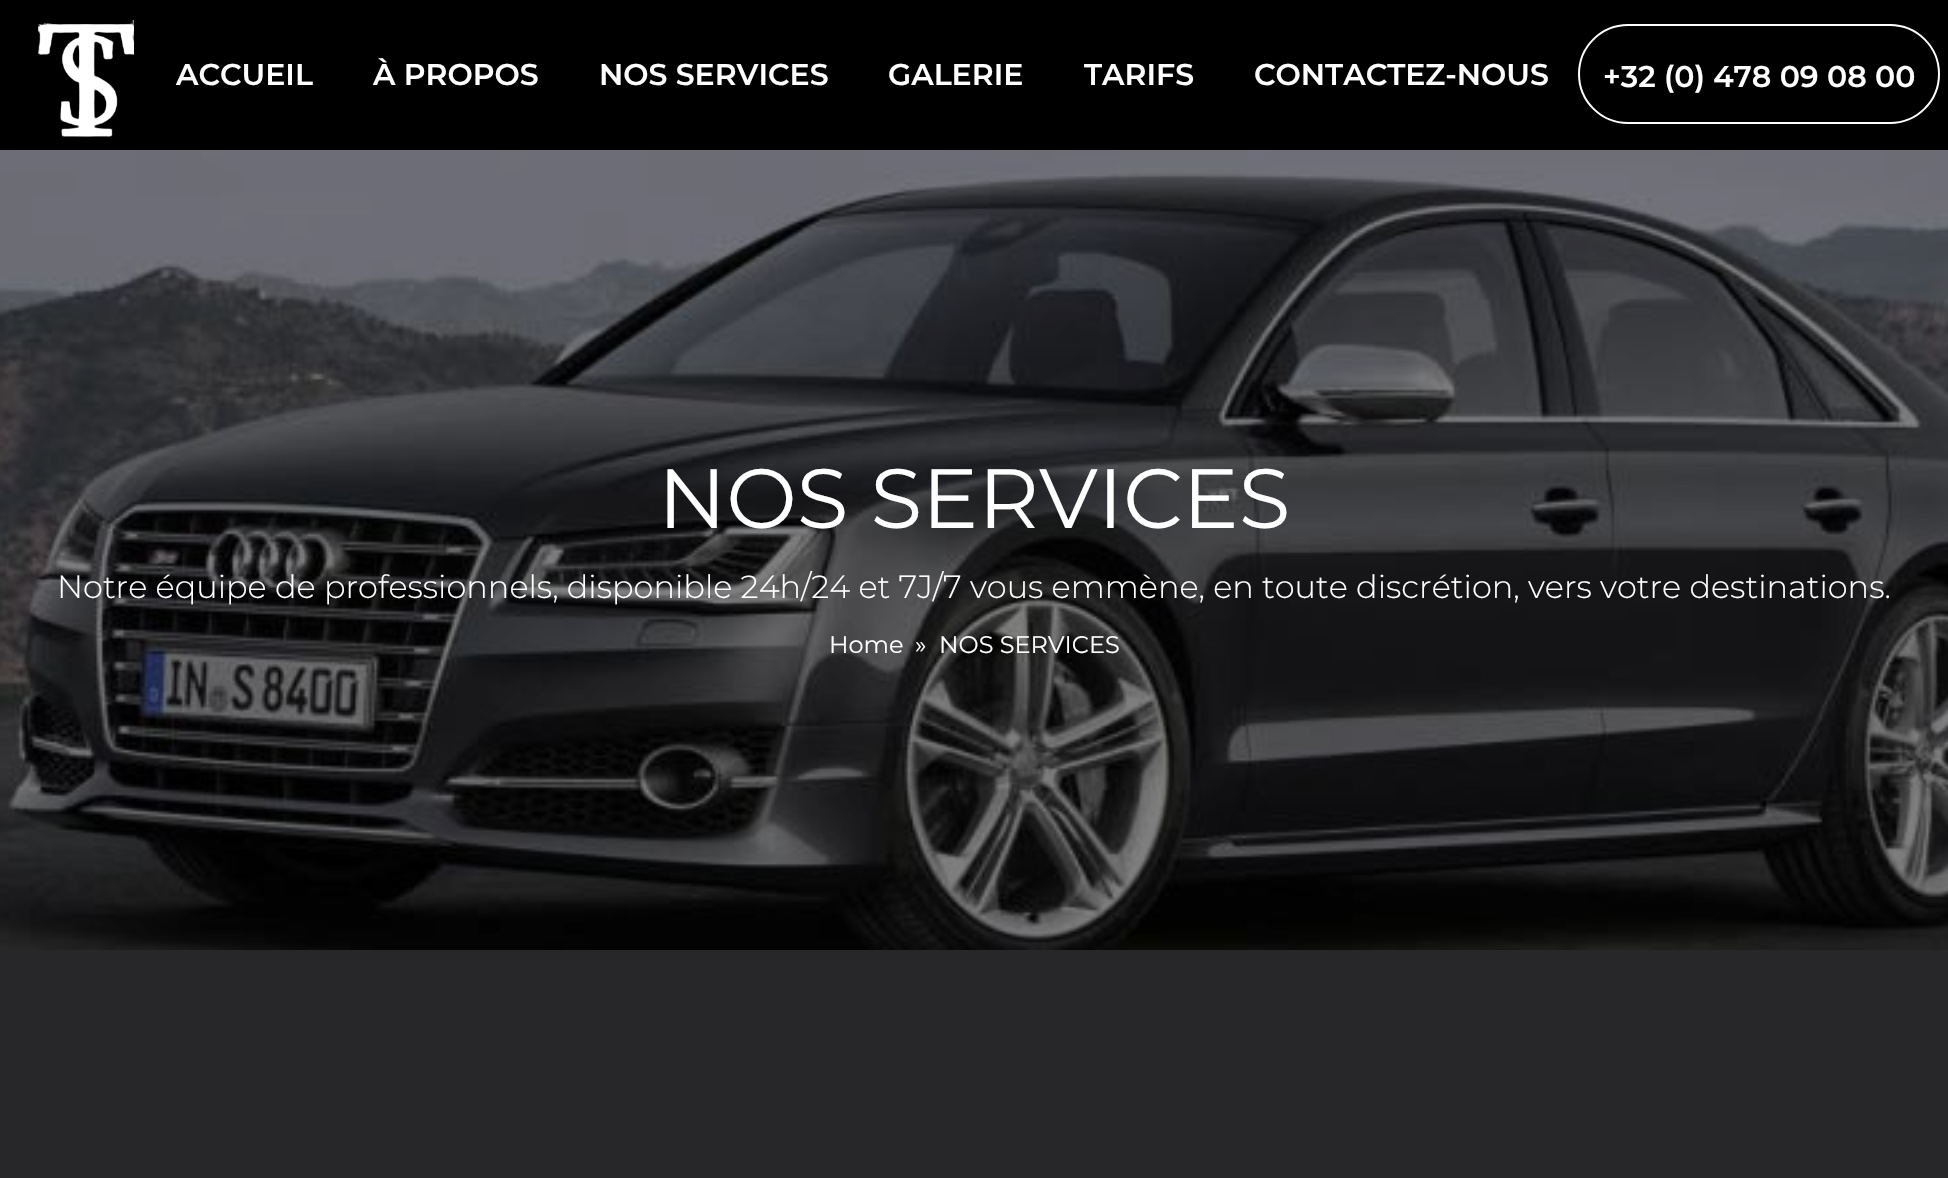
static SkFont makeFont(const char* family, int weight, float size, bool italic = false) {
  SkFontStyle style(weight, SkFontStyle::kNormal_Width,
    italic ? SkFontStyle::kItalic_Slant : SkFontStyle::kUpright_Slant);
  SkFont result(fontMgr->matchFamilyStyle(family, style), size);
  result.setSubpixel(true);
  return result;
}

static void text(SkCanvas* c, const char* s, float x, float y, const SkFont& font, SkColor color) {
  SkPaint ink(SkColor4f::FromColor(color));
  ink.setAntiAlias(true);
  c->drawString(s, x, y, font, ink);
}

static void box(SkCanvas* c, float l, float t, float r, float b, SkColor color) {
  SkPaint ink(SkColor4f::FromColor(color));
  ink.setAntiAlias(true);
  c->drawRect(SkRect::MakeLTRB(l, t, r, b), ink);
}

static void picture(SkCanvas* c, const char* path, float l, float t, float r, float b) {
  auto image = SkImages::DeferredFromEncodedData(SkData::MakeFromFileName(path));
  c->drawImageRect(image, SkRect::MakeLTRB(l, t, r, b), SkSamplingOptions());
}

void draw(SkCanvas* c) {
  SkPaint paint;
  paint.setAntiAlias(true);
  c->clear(0xff272729);
  box(c, 0, 0, 1948, 150, 0xff000000);
  picture(c, "img_01.png", 38, 20, 134, 137);
  SkFont face1 = makeFont("Montserrat", 600, 30);
  text(c, "ACCUEIL", 176, 85, face1, 0xffffffff);
  text(c, "À PROPOS", 373, 85, face1, 0xffffffff);
  text(c, "NOS SERVICES", 599, 85, face1, 0xffffffff);
  text(c, "GALERIE", 888, 85, face1, 0xffffffff);
  text(c, "TARIFS", 1084, 85, face1, 0xffffffff);
  text(c, "CONTACTEZ-NOUS", 1254, 85, face1, 0xffffffff);
  paint.setStyle(SkPaint::kStroke_Style);
  paint.setStrokeWidth(2);
  paint.setColor(0xffffffff);
  c->drawRoundRect(SkRect::MakeLTRB(1579, 25, 1939, 123), 49, 49, paint);
  text(c, "+32 (0) 478 09 08 00", 1603, 87, face1, 0xffffffff);
  picture(c, "img_02.png", 0, 150, 1948, 950);
  SkFont face2 = makeFont("Montserrat", 400, 84);
  text(c, "NOS SERVICES", 658, 528, face2, 0xffffffff);
  SkFont face3 = makeFont("Montserrat", 300, 32);
  text(c, "Notre équipe de professionnels, disponible 24h/24 et 7J/7 vous emmène, en toute discrétion, vers votre destinations.", 57, 598, face3, 0xffffffff);
  SkFont face4 = makeFont("Montserrat", 400, 24);
  text(c, "Home", 829, 653, face4, 0xffffffff);
  text(c, "»", 915, 653, face4, 0xffffffff);
  text(c, "NOS SERVICES", 939, 653, face4, 0xffffffff);
}
